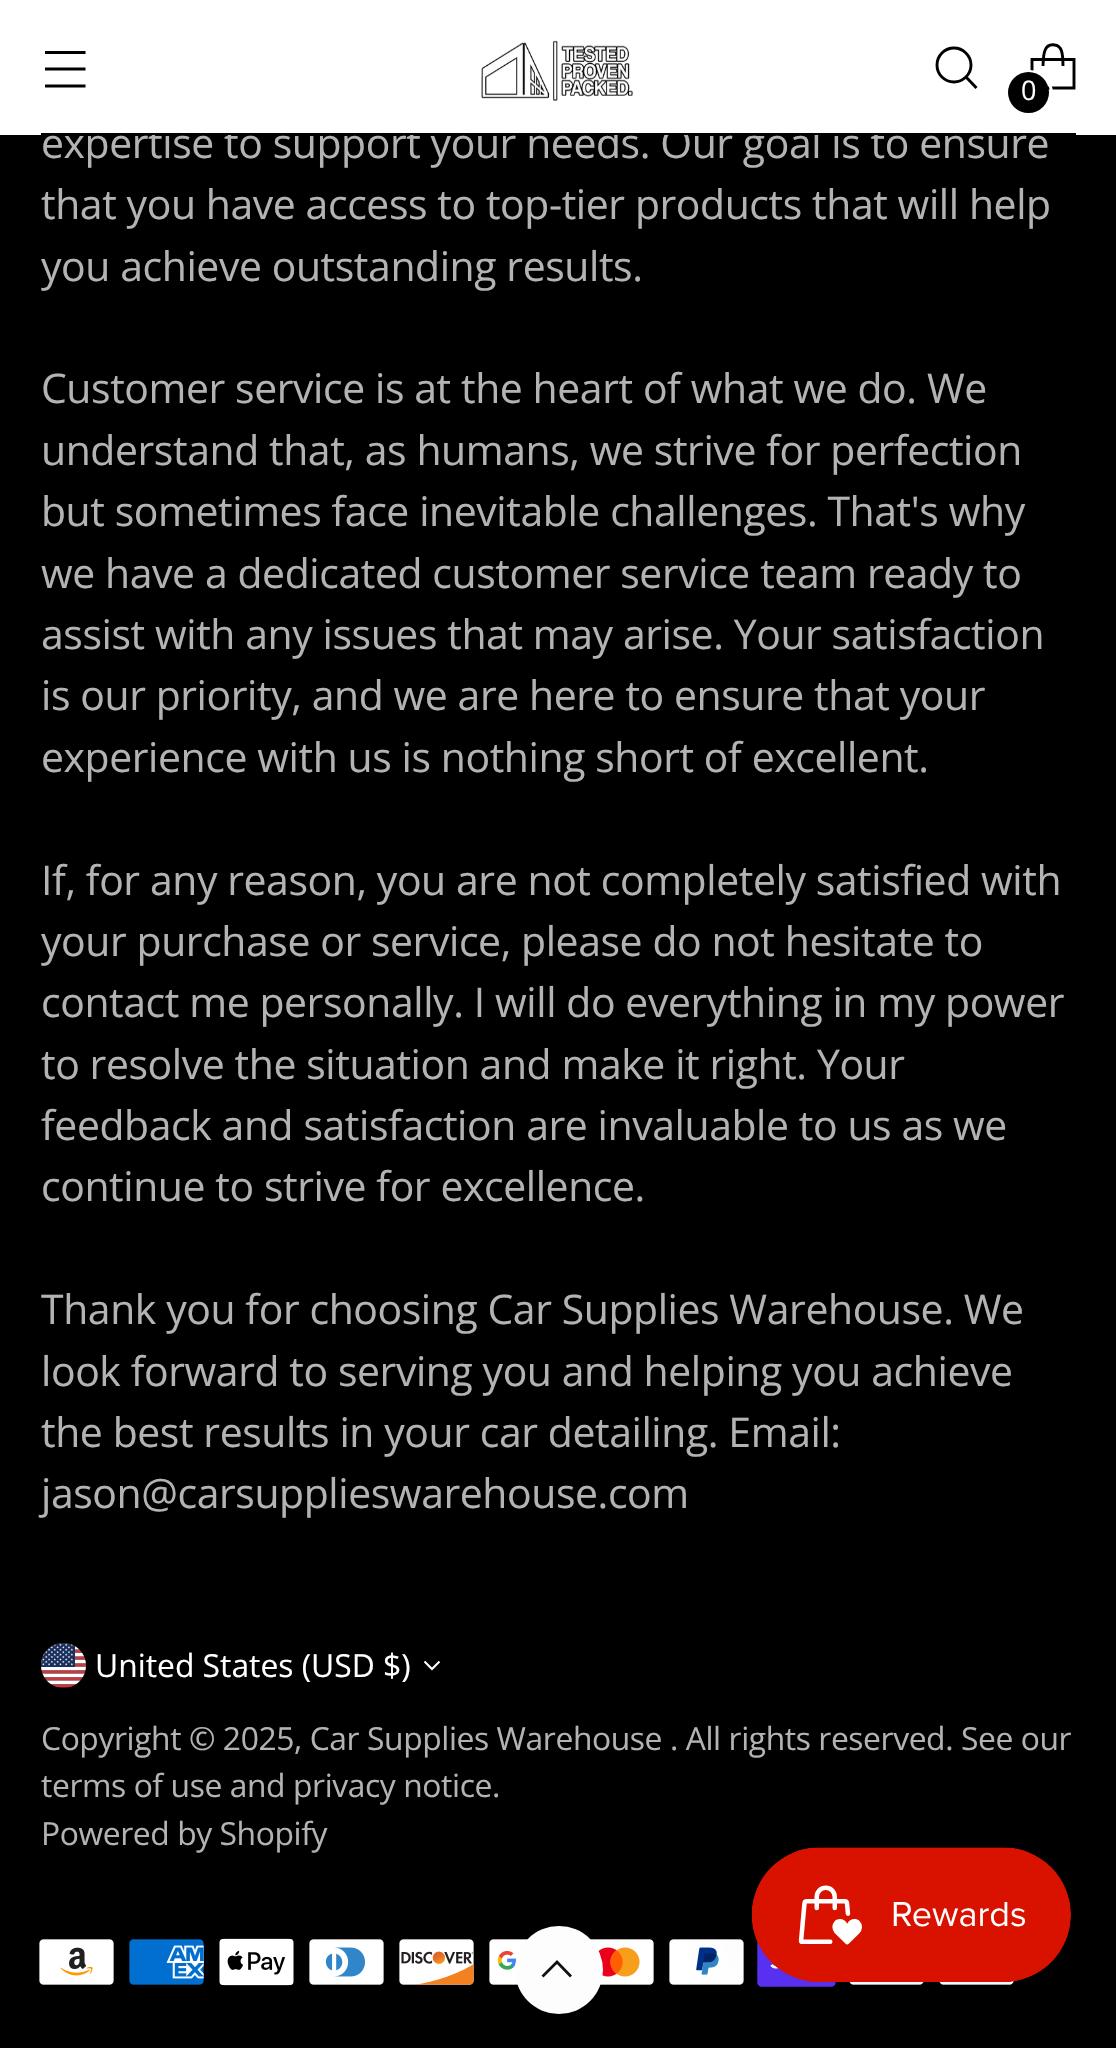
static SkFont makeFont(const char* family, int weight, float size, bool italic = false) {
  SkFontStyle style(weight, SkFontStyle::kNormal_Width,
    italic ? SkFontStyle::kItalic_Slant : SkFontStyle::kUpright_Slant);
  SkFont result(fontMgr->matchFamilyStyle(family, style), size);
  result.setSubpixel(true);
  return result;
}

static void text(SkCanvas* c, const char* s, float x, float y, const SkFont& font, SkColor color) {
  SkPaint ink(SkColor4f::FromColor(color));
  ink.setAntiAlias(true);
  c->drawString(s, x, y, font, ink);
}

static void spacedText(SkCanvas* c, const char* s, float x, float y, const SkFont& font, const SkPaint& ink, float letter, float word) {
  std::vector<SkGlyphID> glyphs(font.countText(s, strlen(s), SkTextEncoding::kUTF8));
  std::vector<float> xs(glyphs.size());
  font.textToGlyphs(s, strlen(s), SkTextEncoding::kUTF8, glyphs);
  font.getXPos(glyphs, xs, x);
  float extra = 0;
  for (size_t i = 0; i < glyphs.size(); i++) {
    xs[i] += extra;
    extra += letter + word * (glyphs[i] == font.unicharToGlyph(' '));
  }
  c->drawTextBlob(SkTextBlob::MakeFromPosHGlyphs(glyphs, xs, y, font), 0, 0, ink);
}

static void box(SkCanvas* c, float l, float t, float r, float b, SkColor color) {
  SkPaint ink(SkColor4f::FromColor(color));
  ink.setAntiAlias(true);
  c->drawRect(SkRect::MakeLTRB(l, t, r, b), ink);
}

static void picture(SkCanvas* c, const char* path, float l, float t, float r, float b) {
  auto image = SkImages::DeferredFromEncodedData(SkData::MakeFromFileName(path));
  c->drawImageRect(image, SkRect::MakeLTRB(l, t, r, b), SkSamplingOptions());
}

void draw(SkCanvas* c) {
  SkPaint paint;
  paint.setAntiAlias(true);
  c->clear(0xff000000);
  SkFont face1 = makeFont("Open Sans", 400, 40.9f);
  paint.setColor(0xffb3b3b3);
  spacedText(c, "expertise to support your needs. Our goal is to ensure", 41, 158, face1, paint, -0.4f, 0);
  box(c, 0, 0, 1116, 135, 0xffffffff);
  box(c, 41, 133, 1076, 135, 0xff000000);
  paint.setStyle(SkPaint::kStroke_Style);
  paint.setStrokeWidth(2.9f);
  paint.setColor(0xff000000);
  c->drawPath(SkPathBuilder().moveTo(45, 69).lineTo(85.5f, 69).moveTo(45, 52.5f).lineTo(85.5f, 52.5f).moveTo(45, 86).lineTo(85.5f, 86).detach(), paint);
  picture(c, "img_01.png", 481, 40, 633, 101);
  paint.setStrokeCap(SkPaint::kRound_Cap);
  c->drawPath(SkPathBuilder().moveTo(954, 82).cubicTo(963, 82, 971, 74.5f, 971, 65).cubicTo(971, 55.5f, 963, 48, 954, 48).cubicTo(944.5f, 48, 937, 55.5f, 937, 65).cubicTo(937, 74.5f, 944.5f, 82, 954, 82).close().detach(), paint);
  paint.setStrokeCap(SkPaint::kButt_Cap);
  c->drawPath(SkPathBuilder().moveTo(966, 77).lineTo(976.5f, 88).detach(), paint);
  paint.setStrokeJoin(SkPaint::kBevel_Join);
  c->drawPath(SkPathBuilder().moveTo(1063, 66).cubicTo(1063, 61, 1063, 55.5f, 1061.5f, 51).cubicTo(1060.5f, 48, 1058, 45.5f, 1055, 45).cubicTo(1042.5f, 42.5f, 1043.5f, 58.5f, 1043, 66).detach(), paint);
  paint.setStrokeJoin(SkPaint::kMiter_Join);
  c->drawPath(SkPathBuilder().moveTo(1074, 88).lineTo(1074, 59.5f).lineTo(1032, 59.5f).lineTo(1032, 88).close().detach(), paint);
  paint.setStrokeWidth(3);
  paint.setColor(0xffffffff);
  c->drawCircle(1029.5f, 93.5f, 22, paint);
  paint.setStyle(SkPaint::kFill_Style);
  paint.setColor(0xff000000);
  c->drawCircle(1028.5f, 92.5f, 20.5f, paint);
  SkFont face2 = makeFont("Open Sans", 400, 27);
  paint.setColor(0xffffffff);
  spacedText(c, "0", 1021, 100, face2, paint, -0.4f, 0);
  paint.setColor(0xffb3b3b3);
  spacedText(c, "that you have access to top-tier products that will help", 41, 219, face1, paint, -0.4f, 0);
  spacedText(c, "you achieve outstanding results.", 41, 281, face1, paint, -0.4f, 0);
  spacedText(c, "Customer service is at the heart of what we do. We", 41, 403, face1, paint, -0.4f, 0);
  spacedText(c, "understand that, as humans, we strive for perfection", 41, 465, face1, paint, -0.4f, 0);
  spacedText(c, "but sometimes face inevitable challenges. That's why", 41, 526, face1, paint, -0.4f, 0);
  spacedText(c, "we have a dedicated customer service team ready to", 41, 588, face1, paint, -0.4f, 0);
  spacedText(c, "assist with any issues that may arise. Your satisfaction", 41, 649, face1, paint, -0.4f, 0);
  spacedText(c, "is our priority, and we are here to ensure that your", 41, 710, face1, paint, -0.4f, 0);
  spacedText(c, "experience with us is nothing short of excellent.", 41, 772, face1, paint, -0.4f, 0);
  spacedText(c, "If, for any reason, you are not completely satisfied with", 41, 895, face1, paint, -0.4f, 0);
  spacedText(c, "your purchase or service, please do not hesitate to", 41, 956, face1, paint, -0.4f, 0);
  spacedText(c, "contact me personally. I will do everything in my power", 41, 1017, face1, paint, -0.4f, 0);
  spacedText(c, "to resolve the situation and make it right. Your", 41, 1079, face1, paint, -0.4f, 0);
  spacedText(c, "feedback and satisfaction are invaluable to us as we", 41, 1140, face1, paint, -0.4f, 0);
  spacedText(c, "continue to strive for excellence.", 41, 1201, face1, paint, -0.4f, 0);
  spacedText(c, "Thank you for choosing Car Supplies Warehouse. We", 41, 1324, face1, paint, -0.4f, 0);
  spacedText(c, "look forward to serving you and helping you achieve", 41, 1386, face1, paint, -0.4f, 0);
  spacedText(c, "the best results in your car detailing. Email:", 41, 1447, face1, paint, -0.4f, 0);
  spacedText(c, "jason@carsupplieswarehouse.com", 41, 1508, face1, paint, -0.4f, 0);
  picture(c, "img_02.png", 41, 1643, 86, 1688);
  SkFont face3 = makeFont("Open Sans", 400, 31.8f);
  text(c, "United States (USD $)", 95, 1677, face3, 0xffffffff);
  paint.setStyle(SkPaint::kStroke_Style);
  paint.setStrokeWidth(2.1f);
  paint.setColor(0xffffffff);
  c->drawPath(SkPathBuilder().moveTo(424.5f, 1661.5f).lineTo(432, 1669).lineTo(439.5f, 1661.5f).detach(), paint);
  paint.setStyle(SkPaint::kFill_Style);
  paint.setColor(0xffb3b3b3);
  spacedText(c, "Copyright © 2025, Car Supplies Warehouse . All rights reserved. See our", 41, 1750, face3, paint, -0.4f, 0);
  spacedText(c, "terms of use and privacy notice.", 41, 1797, face3, paint, -0.4f, 0);
  spacedText(c, "Powered by Shopify", 41, 1845, face3, paint, -0.4f, 0);
  picture(c, "img_03.png", 39, 1939, 114, 1985);
  picture(c, "img_04.png", 129, 1939, 204, 1985);
  picture(c, "img_05.png", 219, 1938, 294, 1986);
  picture(c, "img_06.png", 309, 1939, 384, 1985);
  picture(c, "img_07.png", 399, 1939, 474, 1985);
  picture(c, "img_08.png", 489, 1939, 528, 1985);
  picture(c, "img_09.png", 590, 1939, 654, 1985);
  picture(c, "img_10.png", 669, 1939, 744, 1985);
  picture(c, "img_11.png", 757, 1941, 836, 1987);
  picture(c, "img_12.png", 849, 1982, 924, 1985);
  picture(c, "img_13.png", 939, 1981, 1014, 1985);
  paint.setColor(0xfffdfdfd);
  c->drawCircle(559, 1970, 44, paint);
  paint.setStyle(SkPaint::kStroke_Style);
  paint.setStrokeWidth(2.8f);
  paint.setColor(0xff111111);
  c->drawPath(SkPathBuilder().moveTo(571, 1976.5f).lineTo(557, 1962).lineTo(542.5f, 1976.5f).detach(), paint);
  paint.setStyle(SkPaint::kFill_Style);
  paint.setColor(0x0d000000);
  paint.setMaskFilter(SkMaskFilter::MakeBlur(kNormal_SkBlurStyle, 28));
  c->drawRoundRect(SkRect::MakeLTRB(752, 1847, 1071, 1982), 67.5f, 67.5f, paint);
  paint.setMaskFilter(nullptr);
  picture(c, "img_14.png", 751, 1847, 1071, 1982);
}
